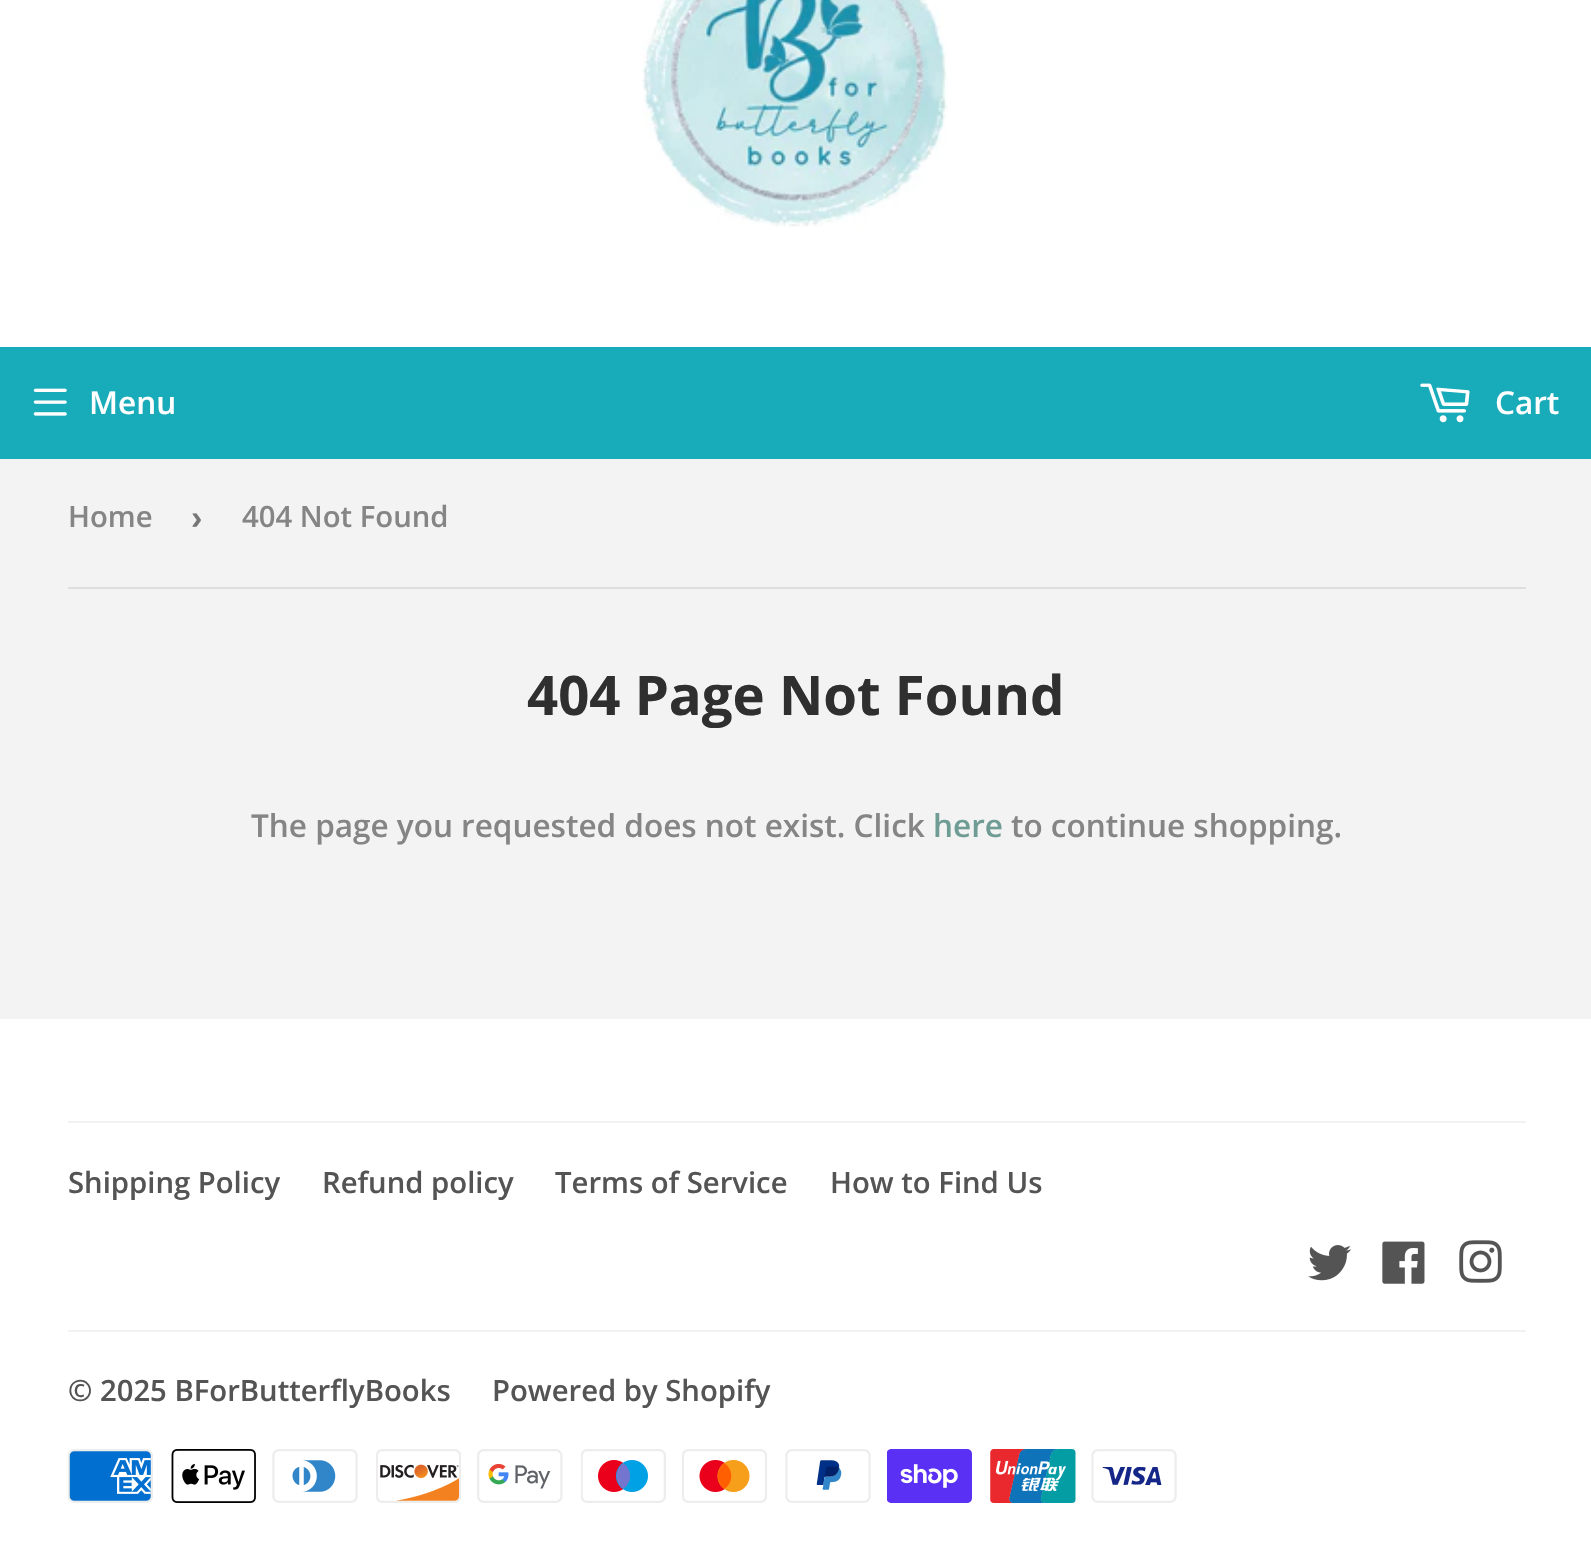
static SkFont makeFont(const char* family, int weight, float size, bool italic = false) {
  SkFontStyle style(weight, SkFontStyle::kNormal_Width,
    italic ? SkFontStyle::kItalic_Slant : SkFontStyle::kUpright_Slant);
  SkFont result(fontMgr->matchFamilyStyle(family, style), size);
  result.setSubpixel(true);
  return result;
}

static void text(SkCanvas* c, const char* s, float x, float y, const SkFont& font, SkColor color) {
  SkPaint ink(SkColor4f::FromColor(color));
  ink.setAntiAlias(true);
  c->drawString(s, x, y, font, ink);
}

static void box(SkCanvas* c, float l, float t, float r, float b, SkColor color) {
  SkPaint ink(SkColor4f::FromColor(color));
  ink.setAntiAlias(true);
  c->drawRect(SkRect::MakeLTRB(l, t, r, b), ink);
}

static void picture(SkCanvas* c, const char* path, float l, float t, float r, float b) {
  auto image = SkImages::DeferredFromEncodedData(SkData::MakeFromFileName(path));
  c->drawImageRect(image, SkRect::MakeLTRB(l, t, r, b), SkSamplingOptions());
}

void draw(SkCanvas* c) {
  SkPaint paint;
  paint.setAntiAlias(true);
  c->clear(0xfff3f3f3);
  box(c, 0, 0, 1591, 347, 0xffffffff);
  picture(c, "img_01.png", 642, 0, 948, 227);
  box(c, 0, 347, 1591, 459, 0xff18abb9);
  picture(c, "img_02.png", 33, 388, 67, 416);
  SkFont face1 = makeFont("Open Sans", 600, 31.5f);
  text(c, "Menu", 89, 414, face1, 0xffffffff);
  picture(c, "img_03.png", 1420, 383, 1470, 423);
  text(c, "Cart", 1495, 414, face1, 0xffffffff);
  box(c, 68, 587, 1526, 589, 0xffdedede);
  SkFont face2 = makeFont("Open Sans", 600, 29.25f);
  text(c, "Home", 68, 527, face2, 0xff858585);
  SkFont face3 = makeFont("Liberation Sans", 700, 34);
  text(c, "›", 191, 529, face3, 0xff767676);
  text(c, "404 Not Found", 242, 527, face2, 0xff858585);
  SkFont face4 = makeFont("Open Sans", 700, 54.5f);
  text(c, "404 Page Not Found", 527, 715, face4, 0xff2f2f2f);
  text(c, "The page you requested does not exist. Click", 251, 837, face1, 0xff858585);
  text(c, "here", 933, 837, face1, 0xff6f9c94);
  text(c, "to continue shopping.", 1011, 837, face1, 0xff858585);
  box(c, 0, 1019, 1591, 1549, 0xffffffff);
  box(c, 68, 1121, 1526, 1123, 0xfff2f2f2);
  text(c, "Shipping Policy", 68, 1193, face2, 0xff545454);
  text(c, "Refund policy", 322, 1193, face2, 0xff545454);
  text(c, "Terms of Service", 555, 1193, face2, 0xff545454);
  text(c, "How to Find Us", 830, 1193, face2, 0xff545454);
  picture(c, "img_04.png", 1308, 1245, 1352, 1281);
  picture(c, "img_05.png", 1382, 1241, 1425, 1284);
  picture(c, "img_06.png", 1459, 1240, 1502, 1283);
  box(c, 68, 1330, 1526, 1332, 0xfff2f2f2);
  text(c, "© 2025 BForButterflyBooks", 68, 1401, face2, 0xff545454);
  text(c, "Powered by Shopify", 492, 1401, face2, 0xff545454);
  picture(c, "img_07.png", 68, 1449, 153, 1503);
  picture(c, "img_08.png", 171, 1449, 256, 1503);
  picture(c, "img_09.png", 272, 1449, 358, 1503);
  picture(c, "img_10.png", 376, 1449, 461, 1503);
  picture(c, "img_11.png", 477, 1449, 563, 1503);
  picture(c, "img_12.png", 581, 1449, 666, 1503);
  picture(c, "img_13.png", 682, 1449, 767, 1503);
  picture(c, "img_14.png", 785, 1449, 871, 1503);
  picture(c, "img_15.png", 887, 1449, 972, 1503);
  picture(c, "img_16.png", 990, 1449, 1076, 1503);
  picture(c, "img_17.png", 1091, 1449, 1177, 1503);
}
